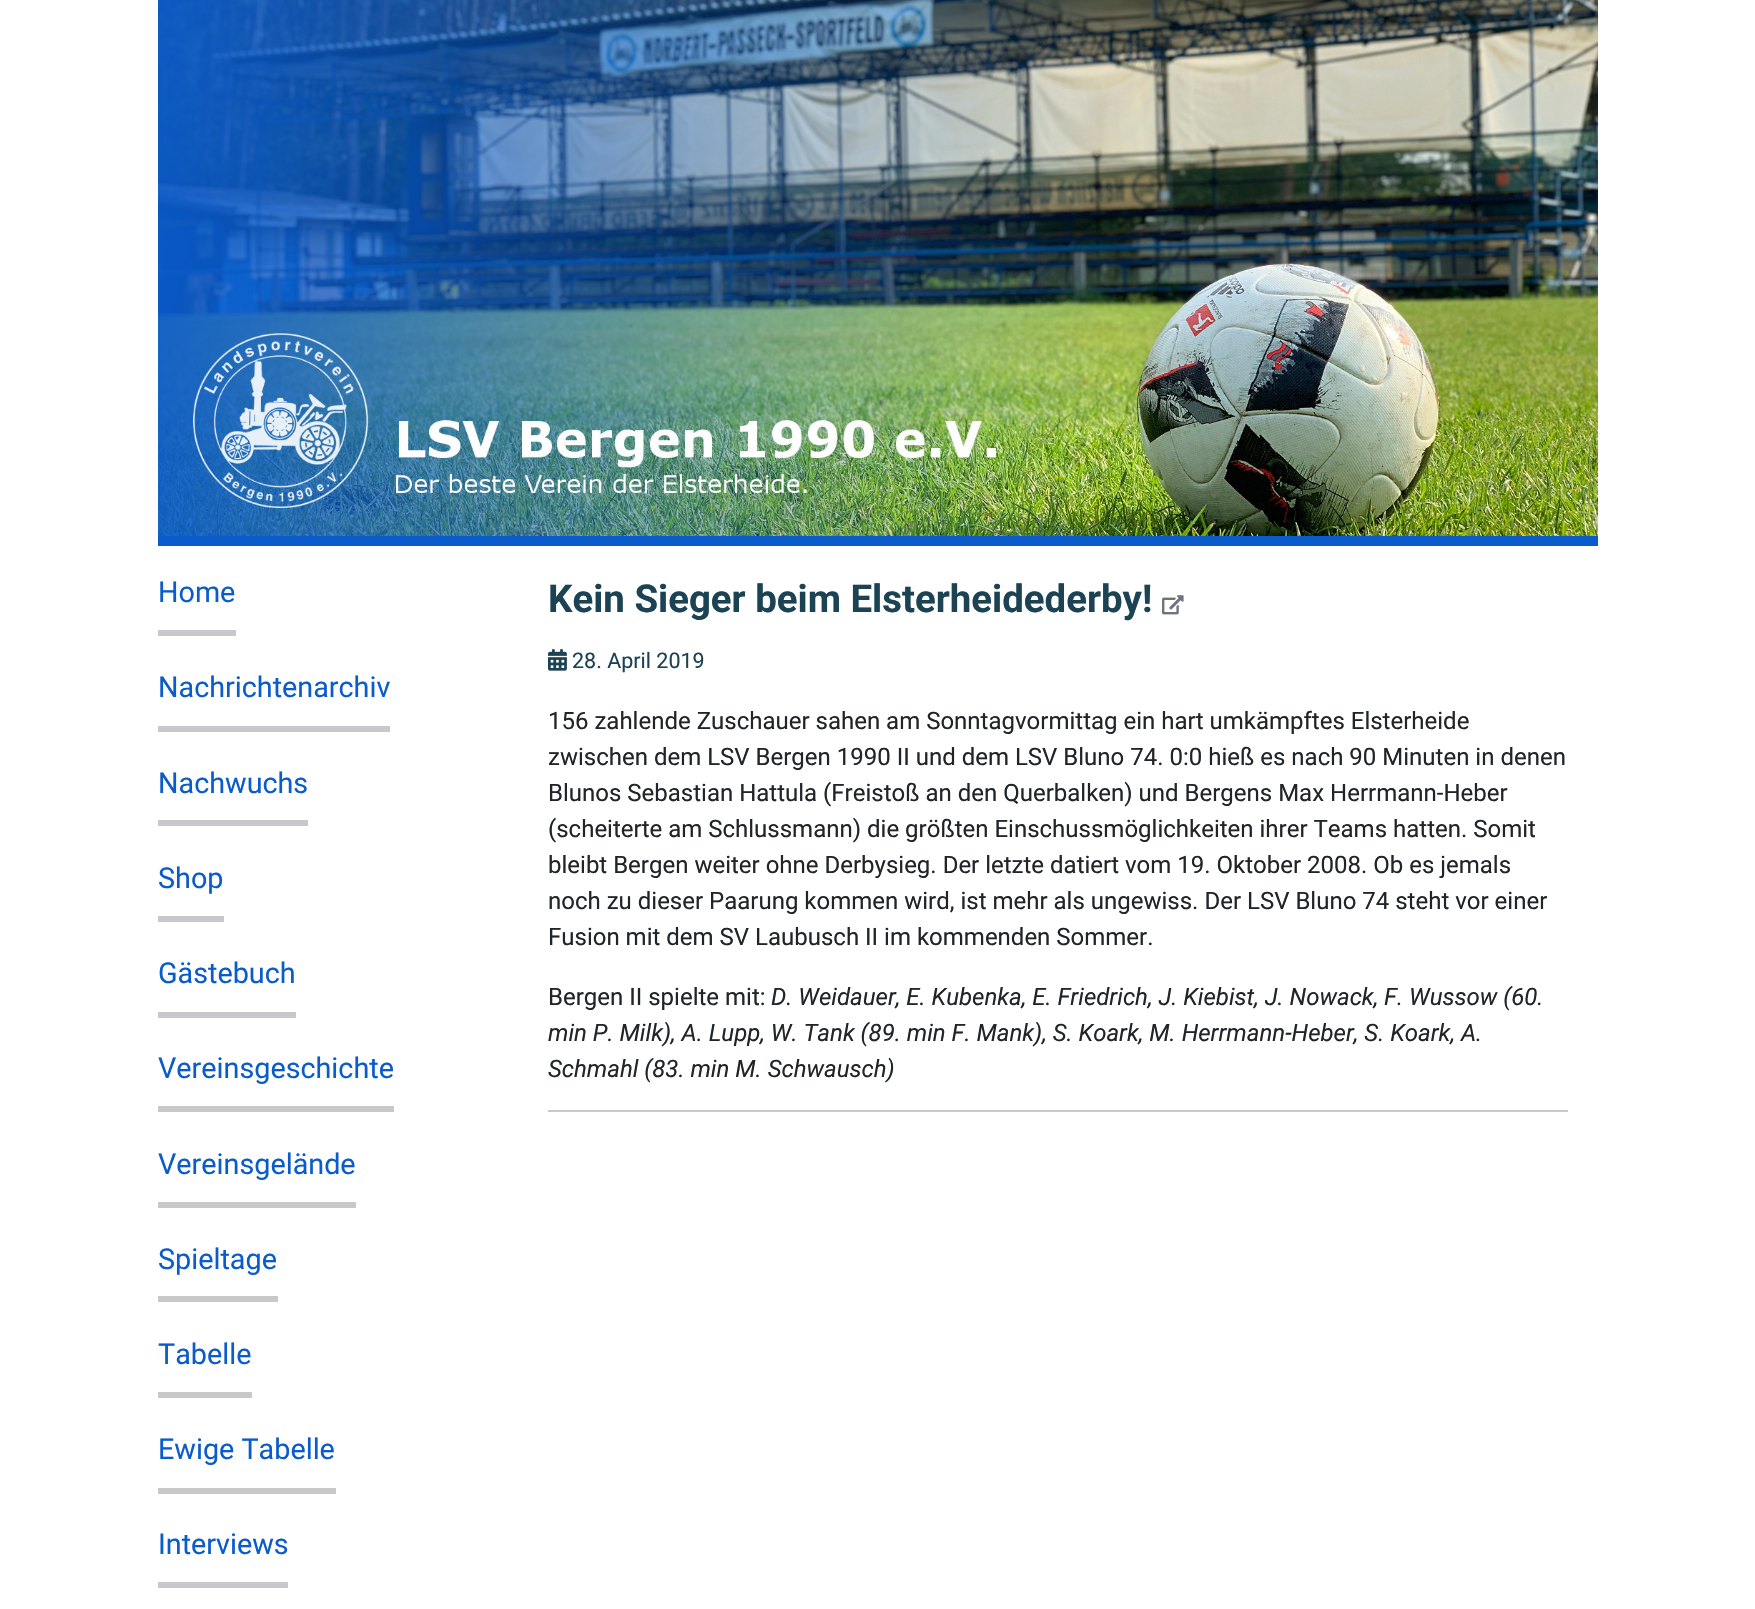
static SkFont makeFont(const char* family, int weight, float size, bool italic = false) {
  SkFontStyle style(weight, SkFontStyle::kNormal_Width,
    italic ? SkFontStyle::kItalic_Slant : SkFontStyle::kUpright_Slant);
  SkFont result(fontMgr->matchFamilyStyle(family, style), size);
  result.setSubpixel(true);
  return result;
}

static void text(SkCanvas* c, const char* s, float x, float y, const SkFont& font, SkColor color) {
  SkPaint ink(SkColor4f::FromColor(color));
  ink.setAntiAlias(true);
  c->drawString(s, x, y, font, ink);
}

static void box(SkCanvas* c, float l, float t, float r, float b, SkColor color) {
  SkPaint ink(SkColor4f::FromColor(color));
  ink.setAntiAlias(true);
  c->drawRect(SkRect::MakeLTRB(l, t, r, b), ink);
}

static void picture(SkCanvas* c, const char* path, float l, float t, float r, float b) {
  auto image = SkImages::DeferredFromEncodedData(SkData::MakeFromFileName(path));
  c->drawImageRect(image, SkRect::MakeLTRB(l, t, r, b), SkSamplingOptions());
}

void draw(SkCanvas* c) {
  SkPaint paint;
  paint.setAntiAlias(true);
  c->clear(0xffffffff);
  box(c, 158, 536, 1598, 546, 0xff0a5bcc);
  picture(c, "img_01.png", 158, 0, 1598, 536);
  SkFont face1 = makeFont("Roboto", 400, 28.75f);
  text(c, "Home", 158, 602, face1, 0xff0a5bcc);
  box(c, 158, 630, 236, 636, 0xffc8c7cc);
  text(c, "Nachrichtenarchiv", 158, 697, face1, 0xff0a5bcc);
  box(c, 158, 726, 390, 732, 0xffc8c7cc);
  text(c, "Nachwuchs", 158, 793, face1, 0xff0a5bcc);
  box(c, 158, 820, 308, 826, 0xffc8c7cc);
  text(c, "Shop", 158, 888, face1, 0xff0a5bcc);
  box(c, 158, 916, 224, 922, 0xffc8c7cc);
  text(c, "Gästebuch", 158, 983, face1, 0xff0a5bcc);
  box(c, 158, 1012, 296, 1018, 0xffc8c7cc);
  text(c, "Vereinsgeschichte", 158, 1078, face1, 0xff0a5bcc);
  box(c, 158, 1106, 394, 1112, 0xffc8c7cc);
  text(c, "Vereinsgelände", 158, 1174, face1, 0xff0a5bcc);
  box(c, 158, 1202, 356, 1208, 0xffc8c7cc);
  text(c, "Spieltage", 158, 1269, face1, 0xff0a5bcc);
  box(c, 158, 1296, 278, 1302, 0xffc8c7cc);
  text(c, "Tabelle", 158, 1364, face1, 0xff0a5bcc);
  box(c, 158, 1392, 252, 1398, 0xffc8c7cc);
  text(c, "Ewige Tabelle", 158, 1459, face1, 0xff0a5bcc);
  box(c, 158, 1488, 336, 1494, 0xffc8c7cc);
  text(c, "Interviews", 158, 1554, face1, 0xff0a5bcc);
  box(c, 158, 1582, 288, 1588, 0xffc8c7cc);
  SkFont face2 = makeFont("Roboto", 700, 38.4f);
  text(c, "Kein Sieger beim Elsterheidederby!", 548, 612, face2, 0xff1b4353);
  picture(c, "img_02.png", 1162, 595, 1184, 615);
  picture(c, "img_03.png", 548, 649, 567, 671);
  SkFont face3 = makeFont("Roboto", 400, 21.5f);
  text(c, "28. April 2019", 572, 668, face3, 0xff1b4353);
  SkFont face4 = makeFont("Roboto", 400, 24);
  text(c, "156 zahlende Zuschauer sahen am Sonntagvormittag ein hart umkämpftes Elsterheide", 548, 729, face4, 0xff212529);
  text(c, "zwischen dem LSV Bergen 1990 II und dem LSV Bluno 74. 0:0 hieß es nach 90 Minuten in denen", 548, 765, face4, 0xff212529);
  text(c, "Blunos Sebastian Hattula (Freistoß an den Querbalken) und Bergens Max Herrmann-Heber", 548, 801, face4, 0xff212529);
  text(c, "(scheiterte am Schlussmann) die größten Einschussmöglichkeiten ihrer Teams hatten. Somit", 548, 837, face4, 0xff212529);
  text(c, "bleibt Bergen weiter ohne Derbysieg. Der letzte datiert vom 19. Oktober 2008. Ob es jemals", 548, 873, face4, 0xff212529);
  text(c, "noch zu dieser Paarung kommen wird, ist mehr als ungewiss. Der LSV Bluno 74 steht vor einer", 548, 909, face4, 0xff212529);
  text(c, "Fusion mit dem SV Laubusch II im kommenden Sommer.", 548, 945, face4, 0xff212529);
  text(c, "Bergen II spielte mit:", 548, 1005, face4, 0xff212529);
  SkFont face5 = makeFont("Roboto", 400, 24, true);
  text(c, "D. Weidauer, E. Kubenka, E. Friedrich, J. Kiebist, J. Nowack, F. Wussow (60.", 771, 1005, face5, 0xff212529);
  text(c, "min P. Milk), A. Lupp, W. Tank (89. min F. Mank), S. Koark, M. Herrmann-Heber, S. Koark, A.", 548, 1041, face5, 0xff212529);
  text(c, "Schmahl (83. min M. Schwausch)", 548, 1077, face5, 0xff212529);
  box(c, 548, 1110, 1568, 1112, 0xffc8c7cc);
}
